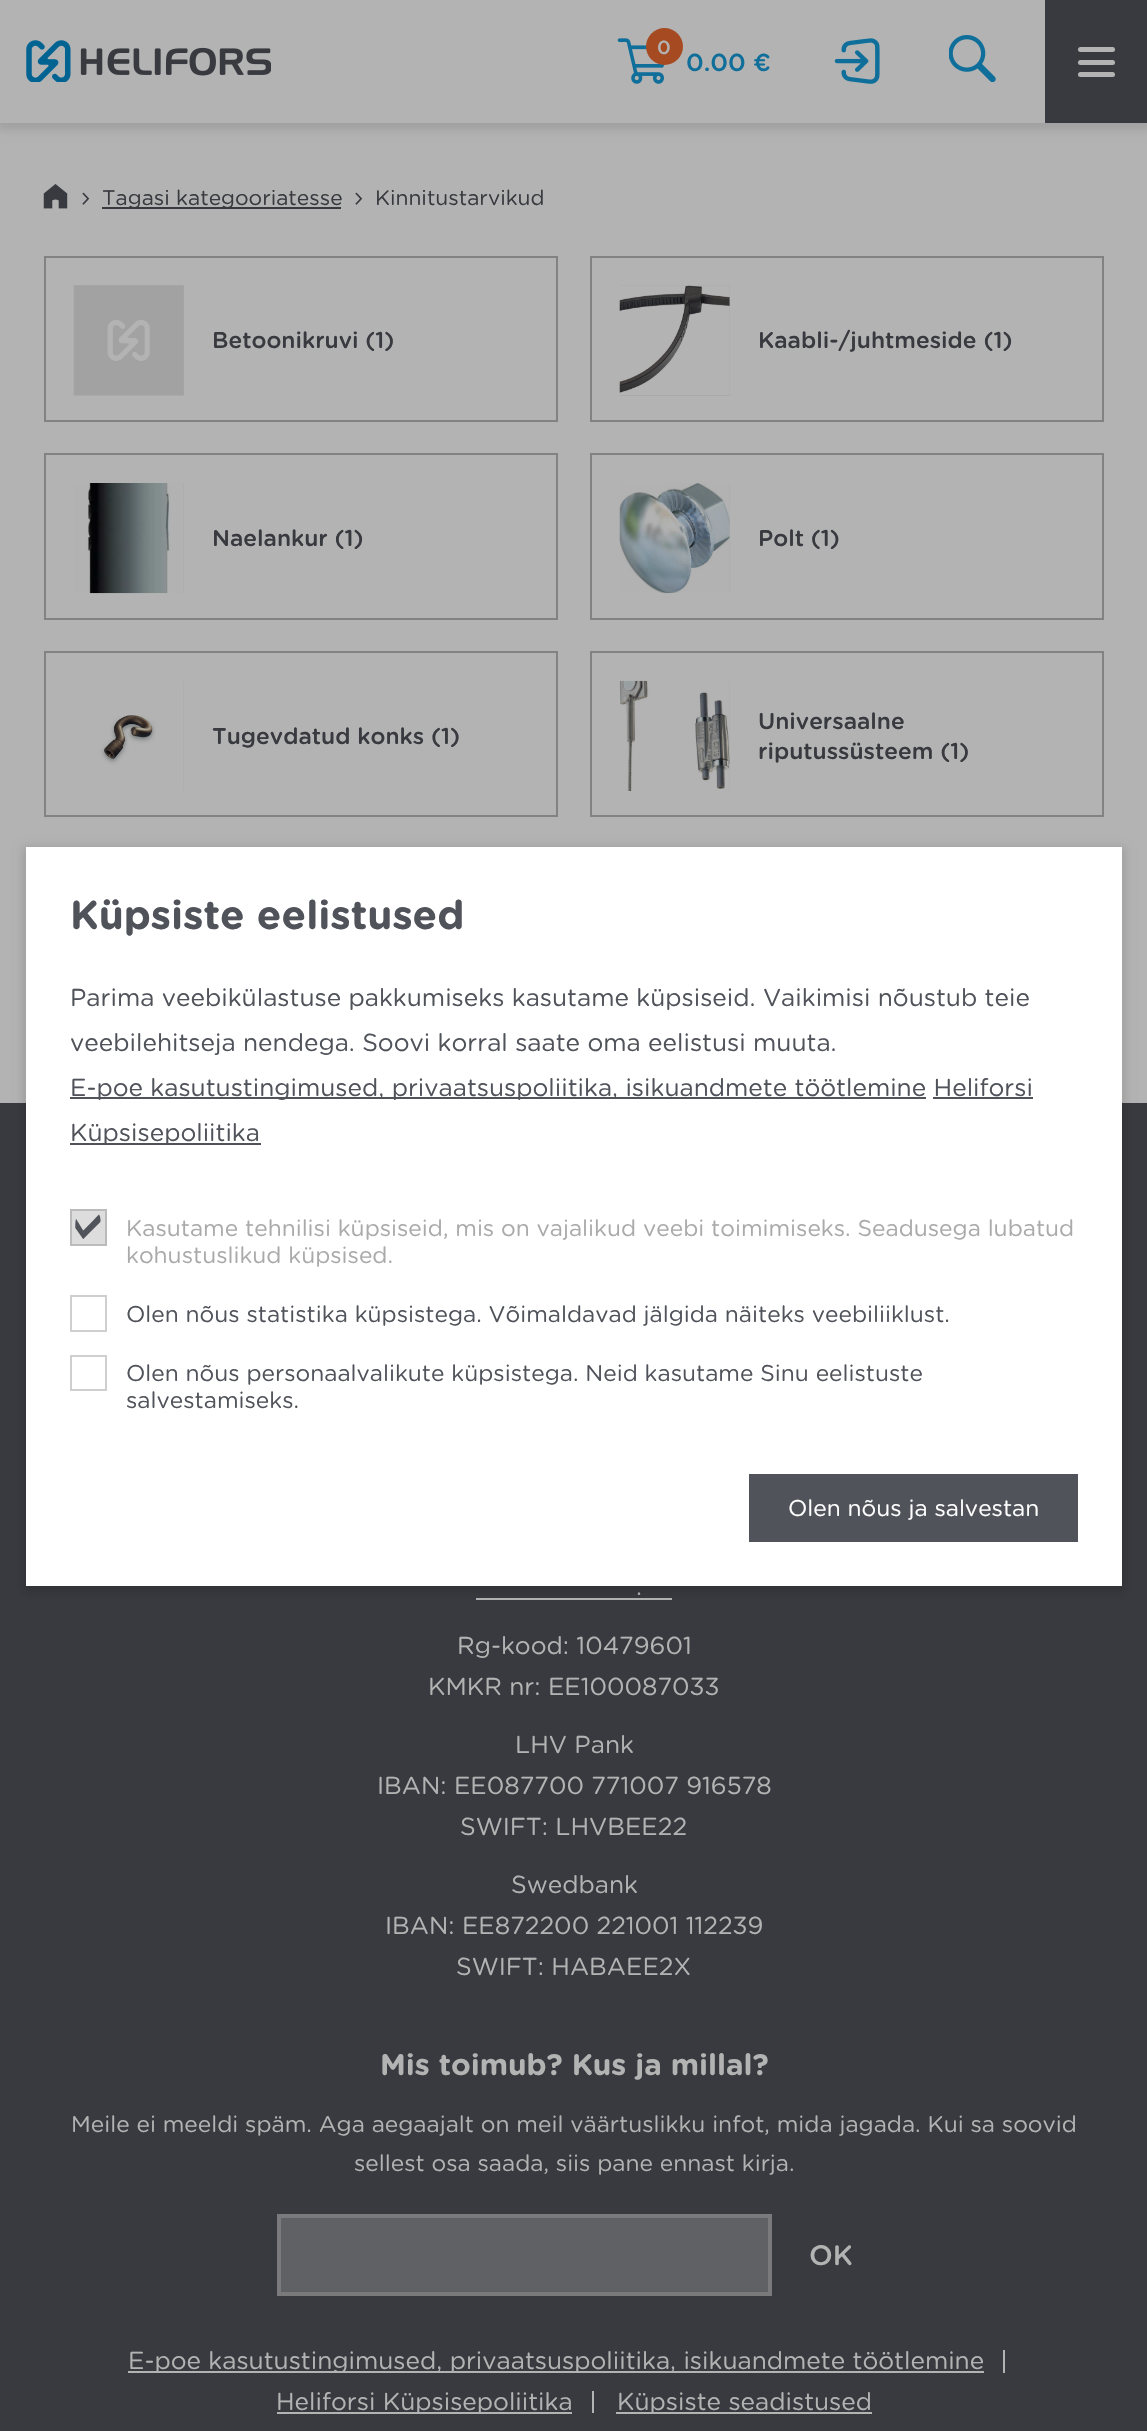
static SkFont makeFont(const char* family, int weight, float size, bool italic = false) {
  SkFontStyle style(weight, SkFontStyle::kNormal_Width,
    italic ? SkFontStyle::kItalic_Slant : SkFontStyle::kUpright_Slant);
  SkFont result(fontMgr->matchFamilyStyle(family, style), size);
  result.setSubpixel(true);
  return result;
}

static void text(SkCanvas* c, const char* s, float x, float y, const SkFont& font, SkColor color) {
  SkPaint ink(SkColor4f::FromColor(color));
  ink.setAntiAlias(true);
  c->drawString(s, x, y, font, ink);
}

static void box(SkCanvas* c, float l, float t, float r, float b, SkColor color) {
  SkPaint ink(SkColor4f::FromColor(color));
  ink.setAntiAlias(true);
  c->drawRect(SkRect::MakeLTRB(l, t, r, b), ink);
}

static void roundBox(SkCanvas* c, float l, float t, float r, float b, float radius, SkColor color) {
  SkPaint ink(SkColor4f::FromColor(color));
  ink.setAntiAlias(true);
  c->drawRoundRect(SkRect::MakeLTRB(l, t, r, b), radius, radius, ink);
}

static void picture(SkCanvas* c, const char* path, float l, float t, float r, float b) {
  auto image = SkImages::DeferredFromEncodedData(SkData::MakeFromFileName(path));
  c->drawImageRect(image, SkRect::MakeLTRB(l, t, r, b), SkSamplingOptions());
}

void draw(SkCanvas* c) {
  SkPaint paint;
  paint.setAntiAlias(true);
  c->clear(0xffb3b3b3);
  paint.setColor(0x1a000000);
  paint.setMaskFilter(SkMaskFilter::MakeBlur(kNormal_SkBlurStyle, 4.5f));
  c->drawRect(SkRect::MakeLTRB(-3, 0, 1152, 130), paint);
  paint.setMaskFilter(nullptr);
  box(c, 0, 0, 1045, 123, 0xffb3b3b3);
  picture(c, "img_01.png", 26, 40, 271, 82);
  picture(c, "img_02.png", 617, 38, 664, 84);
  paint.setColor(0xffa64a22);
  c->drawCircle(664.5f, 46.5f, 18.5f, paint);
  SkFont face1 = makeFont("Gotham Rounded", 500, 19);
  text(c, "0", 657, 54, face1, 0xffb3b3b3);
  SkFont face2 = makeFont("Gotham Rounded", 500, 24.5f);
  text(c, "0.00 €", 686, 71, face2, 0xff0f6f9a);
  picture(c, "img_03.png", 834, 38, 880, 84);
  picture(c, "img_04.png", 949, 35, 996, 82);
  box(c, 1045, 0, 1147, 123, 0xff383a3f);
  roundBox(c, 1078, 47, 1115, 52, 2.5f, 0xffb3b3b3);
  roundBox(c, 1078, 60, 1115, 65, 2.5f, 0xffb3b3b3);
  roundBox(c, 1078, 72, 1115, 77, 2.5f, 0xffb3b3b3);
  picture(c, "img_05.png", 43, 184, 68, 209);
  picture(c, "img_06.png", 82, 192, 90, 205);
  box(c, 102, 207, 341, 209, 0xff383a3f);
  SkFont face3 = makeFont("Gotham Rounded", 400, 21);
  text(c, "Tagasi kategooriatesse", 102, 205, face3, 0xff383a3f);
  picture(c, "img_06.png", 355, 192, 363, 205);
  text(c, "Kinnitustarvikud", 375, 205, face3, 0xff383a3f);
  paint.setStyle(SkPaint::kStroke_Style);
  paint.setStrokeWidth(2);
  paint.setColor(0xff828282);
  c->drawRect(SkRect::MakeLTRB(45, 257, 557, 421), paint);
  box(c, 74, 285, 184, 396, 0xffaaaaaa);
  picture(c, "img_07.png", 73, 285, 184, 395);
  SkFont face4 = makeFont("Gotham Rounded", 500, 22.75f);
  text(c, "Betoonikruvi (1)", 212, 348, face4, 0xff383a3f);
  c->drawRect(SkRect::MakeLTRB(591, 257, 1103, 421), paint);
  box(c, 620, 285, 730, 396, 0xffaaaaaa);
  picture(c, "img_08.png", 619, 285, 730, 395);
  text(c, "Kaabli-/juhtmeside (1)", 758, 348, face4, 0xff383a3f);
  c->drawRect(SkRect::MakeLTRB(45, 454, 557, 619), paint);
  box(c, 183, 483, 184, 593, 0xffaaaaaa);
  picture(c, "img_09.png", 74, 483, 184, 594);
  text(c, "Naelankur (1)", 212, 546, face4, 0xff383a3f);
  c->drawRect(SkRect::MakeLTRB(591, 454, 1103, 619), paint);
  box(c, 729, 483, 730, 593, 0xffaaaaaa);
  picture(c, "img_10.png", 619, 483, 730, 594);
  text(c, "Polt (1)", 758, 546, face4, 0xff383a3f);
  c->drawRect(SkRect::MakeLTRB(45, 652, 557, 816), paint);
  box(c, 183, 681, 184, 791, 0xffaaaaaa);
  picture(c, "img_11.png", 74, 681, 184, 791);
  text(c, "Tugevdatud konks (1)", 212, 744, face4, 0xff383a3f);
  c->drawRect(SkRect::MakeLTRB(591, 652, 1103, 816), paint);
  box(c, 729, 681, 730, 791, 0xffaaaaaa);
  picture(c, "img_12.png", 619, 680, 730, 791);
  text(c, "Universaalne", 758, 729, face4, 0xff383a3f);
  text(c, "riputussüsteem (1)", 758, 759, face4, 0xff383a3f);
  box(c, 0, 1103, 1147, 2431, 0xff383a3f);
  SkFont face5 = makeFont("Gotham Rounded", 400, 24.5f);
  text(c, ".", 636, 1595, face5, 0xffb3b3b3);
  box(c, 476, 1598, 672, 1600, 0xffb3b3b3);
  text(c, "Rg-kood: 10479601", 457, 1654, face5, 0xffb3b3b3);
  text(c, "KMKR nr: EE100087033", 428, 1695, face5, 0xffb3b3b3);
  text(c, "LHV Pank", 515, 1753, face5, 0xffb3b3b3);
  text(c, "IBAN: EE087700 771007 916578", 377, 1794, face5, 0xffb3b3b3);
  text(c, "SWIFT: LHVBEE22", 460, 1835, face5, 0xffb3b3b3);
  text(c, "Swedbank", 511, 1893, face5, 0xffb3b3b3);
  text(c, "IBAN: EE872200 221001 112239", 385, 1934, face5, 0xffb3b3b3);
  text(c, "SWIFT: HABAEE2X", 456, 1975, face5, 0xffb3b3b3);
  SkFont face6 = makeFont("Gotham Rounded", 700, 29.75f);
  text(c, "Mis toimub? Kus ja millal?", 380, 2075, face6, 0xffb3b3b3);
  SkFont face7 = makeFont("Gotham Rounded", 400, 22.75f);
  text(c, "Meile ei meeldi späm. Aga aegaajalt on meil väärtuslikku infot, mida jagada. Kui sa soovid", 71, 2132, face7, 0xffb3b3b3);
  text(c, "sellest osa saada, siis pane ennast kirja.", 354, 2171, face7, 0xffb3b3b3);
  paint.setStyle(SkPaint::kFill_Style);
  paint.setColor(0xff5f6164);
  c->drawRect(SkRect::MakeLTRB(279, 2216, 770, 2294), paint);
  paint.setStyle(SkPaint::kStroke_Style);
  paint.setStrokeWidth(4);
  paint.setColor(0xff7a7a7d);
  c->drawRect(SkRect::MakeLTRB(279, 2216, 770, 2294), paint);
  SkFont face8 = makeFont("Gotham Rounded", 500, 28);
  text(c, "OK", 809, 2265, face8, 0xffb3b3b3);
  box(c, 128, 2371, 984, 2373, 0xffb3b3b3);
  text(c, "E-poe kasutustingimused, privaatsuspoliitika, isikuandmete töötlemine", 128, 2369, face5, 0xffb3b3b3);
  box(c, 1003, 2350, 1005, 2373, 0xffb3b3b3);
  box(c, 277, 2412, 572, 2414, 0xffb3b3b3);
  text(c, "Heliforsi Küpsisepoliitika", 276, 2410, face5, 0xffb3b3b3);
  box(c, 592, 2391, 594, 2413, 0xffb3b3b3);
  box(c, 616, 2412, 872, 2414, 0xffb3b3b3);
  text(c, "Küpsiste seadistused", 617, 2410, face5, 0xffb3b3b3);
  paint.setStyle(SkPaint::kFill_Style);
  paint.setColor(0x1f000000);
  paint.setMaskFilter(SkMaskFilter::MakeBlur(kNormal_SkBlurStyle, 4.5f));
  c->drawRect(SkRect::MakeLTRB(23, 847, 1125, 1593), paint);
  paint.setMaskFilter(nullptr);
  box(c, 26, 847, 1122, 1586, 0xffffffff);
  SkFont face9 = makeFont("Gotham Rounded", 700, 40.25f);
  text(c, "Küpsiste eelistused", 70, 929, face9, 0xff50535a);
  text(c, "Parima veebikülastuse pakkumiseks kasutame küpsiseid. Vaikimisi nõustub teie", 70, 1006, face5, 0xff50535a);
  text(c, "veebilehitseja nendega. Soovi korral saate oma eelistusi muuta.", 70, 1051, face5, 0xff50535a);
  box(c, 70, 1097, 926, 1099, 0xff50535a);
  text(c, "E-poe kasutustingimused, privaatsuspoliitika, isikuandmete töötlemine Heliforsi", 70, 1096, face5, 0xff50535a);
  box(c, 70, 1143, 261, 1145, 0xff50535a);
  text(c, "Küpsisepoliitika", 70, 1141, face5, 0xff50535a);
  box(c, 933, 1097, 1033, 1099, 0xff50535a);
  paint.setColor(0xffdddddd);
  c->drawRect(SkRect::MakeLTRB(71, 1210, 106, 1245), paint);
  paint.setStyle(SkPaint::kStroke_Style);
  paint.setStrokeWidth(2);
  paint.setColor(0xffbbbbbb);
  c->drawRect(SkRect::MakeLTRB(71, 1210, 106, 1245), paint);
  picture(c, "img_13.png", 75, 1214, 101, 1239);
  text(c, "Kasutame tehnilisi küpsiseid, mis on vajalikud veebi toimimiseks. Seadusega lubatud", 126, 1236, face7, 0xffaaaaaa);
  text(c, "kohustuslikud küpsised.", 126, 1263, face7, 0xffaaaaaa);
  paint.setColor(0xffcfcfcf);
  c->drawRect(SkRect::MakeLTRB(71, 1296, 106, 1331), paint);
  text(c, "Olen nõus statistika küpsistega. Võimaldavad jälgida näiteks veebiliiklust.", 126, 1322, face7, 0xff50535a);
  c->drawRect(SkRect::MakeLTRB(71, 1356, 106, 1390), paint);
  text(c, "Olen nõus personaalvalikute küpsistega. Neid kasutame Sinu eelistuste", 126, 1381, face7, 0xff50535a);
  text(c, "salvestamiseks.", 126, 1408, face7, 0xff50535a);
  box(c, 749, 1474, 1078, 1542, 0xff50535a);
  text(c, "Olen nõus ja salvestan", 788, 1516, face7, 0xffffffff);
}
